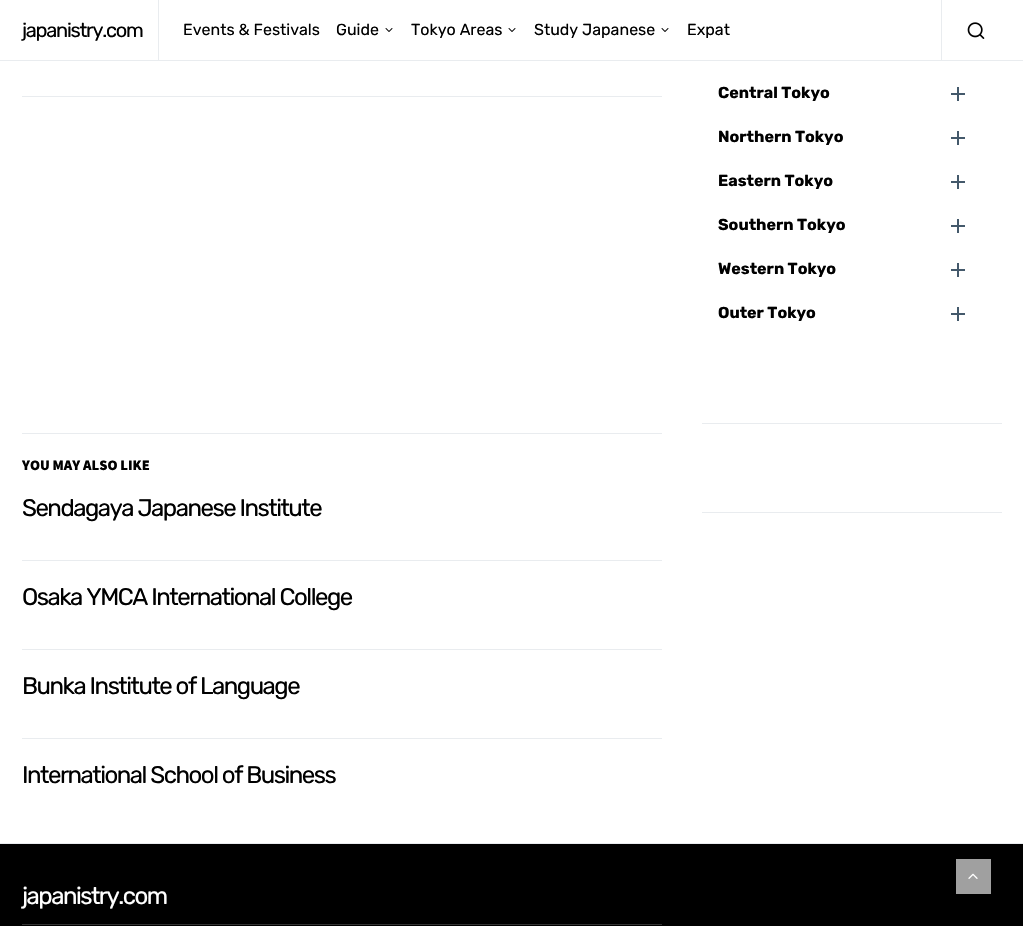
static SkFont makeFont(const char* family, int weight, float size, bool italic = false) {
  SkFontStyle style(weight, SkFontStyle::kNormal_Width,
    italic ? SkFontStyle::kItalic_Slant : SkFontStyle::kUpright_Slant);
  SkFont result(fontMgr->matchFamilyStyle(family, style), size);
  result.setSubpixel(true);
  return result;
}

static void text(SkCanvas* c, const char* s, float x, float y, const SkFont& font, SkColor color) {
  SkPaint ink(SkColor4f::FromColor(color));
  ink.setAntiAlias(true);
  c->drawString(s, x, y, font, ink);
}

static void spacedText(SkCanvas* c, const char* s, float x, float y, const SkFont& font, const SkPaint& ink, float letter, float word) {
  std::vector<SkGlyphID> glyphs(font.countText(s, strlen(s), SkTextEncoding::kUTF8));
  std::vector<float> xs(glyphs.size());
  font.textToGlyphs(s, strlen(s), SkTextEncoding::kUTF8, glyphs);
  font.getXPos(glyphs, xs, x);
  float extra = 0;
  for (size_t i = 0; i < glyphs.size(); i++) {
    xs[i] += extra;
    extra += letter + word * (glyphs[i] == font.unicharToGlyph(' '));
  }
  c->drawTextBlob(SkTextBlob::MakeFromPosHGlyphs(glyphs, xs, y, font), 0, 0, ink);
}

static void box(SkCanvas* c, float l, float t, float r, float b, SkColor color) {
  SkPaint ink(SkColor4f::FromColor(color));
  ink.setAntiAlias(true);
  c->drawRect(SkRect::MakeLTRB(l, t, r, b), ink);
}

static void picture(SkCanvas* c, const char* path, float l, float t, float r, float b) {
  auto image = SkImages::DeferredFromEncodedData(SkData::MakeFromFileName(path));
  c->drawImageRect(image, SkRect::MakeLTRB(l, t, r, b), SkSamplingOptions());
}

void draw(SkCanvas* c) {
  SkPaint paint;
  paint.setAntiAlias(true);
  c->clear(0xffffffff);
  box(c, 0, 60, 1023, 61, 0xffe9ecef);
  SkFont face1 = makeFont("Rubik", 400, 20);
  paint.setColor(0xff000000);
  spacedText(c, "japanistry.com", 22, 37, face1, paint, -1.25f, 0);
  box(c, 158, 0, 159, 60, 0xffe9ecef);
  SkFont face2 = makeFont("Rubik", 400, 16);
  text(c, "Events & Festivals", 183, 35, face2, 0xff000000);
  text(c, "Guide", 336, 35, face2, 0xff000000);
  picture(c, "img_01.png", 385, 28, 393, 32);
  text(c, "Tokyo Areas", 411, 35, face2, 0xff000000);
  picture(c, "img_01.png", 508, 28, 516, 32);
  text(c, "Study Japanese", 534, 35, face2, 0xff000000);
  picture(c, "img_01.png", 661, 28, 669, 32);
  text(c, "Expat", 687, 35, face2, 0xff000000);
  box(c, 941, 0, 942, 60, 0xffe9ecef);
  picture(c, "img_02.png", 967, 22, 985, 39);
  box(c, 702, 423, 1002, 424, 0xffe9ecef);
  SkFont face3 = makeFont("Rubik", 700, 16);
  text(c, "Central Tokyo", 718, 98, face3, 0xff000000);
  box(c, 957, 87, 959, 101, 0xff44596b);
  box(c, 951, 93, 965, 95, 0xff44596b);
  text(c, "Northern Tokyo", 718, 142, face3, 0xff000000);
  box(c, 957, 131, 959, 145, 0xff44596b);
  box(c, 951, 137, 965, 139, 0xff44596b);
  text(c, "Eastern Tokyo", 718, 186, face3, 0xff000000);
  box(c, 957, 175, 959, 189, 0xff44596b);
  box(c, 951, 181, 965, 183, 0xff44596b);
  text(c, "Southern Tokyo", 718, 230, face3, 0xff000000);
  box(c, 957, 219, 959, 233, 0xff44596b);
  box(c, 951, 225, 965, 227, 0xff44596b);
  text(c, "Western Tokyo", 718, 274, face3, 0xff000000);
  box(c, 957, 263, 959, 277, 0xff44596b);
  box(c, 951, 269, 965, 271, 0xff44596b);
  text(c, "Outer Tokyo", 718, 318, face3, 0xff000000);
  box(c, 957, 307, 959, 321, 0xff44596b);
  box(c, 951, 313, 965, 315, 0xff44596b);
  box(c, 702, 512, 1002, 513, 0xffe9ecef);
  box(c, 22, 96, 662, 97, 0xffe9ecef);
  box(c, 22, 433, 662, 434, 0xffe9ecef);
  SkFont face4 = makeFont("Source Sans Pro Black", 900, 14.5f);
  text(c, "YOU MAY ALSO LIKE", 22, 470, face4, 0xff000000);
  SkFont face5 = makeFont("Rubik", 400, 24);
  spacedText(c, "Sendagaya Japanese Institute", 22, 516, face5, paint, -1.5f, 0);
  box(c, 22, 560, 662, 561, 0xffe9ecef);
  spacedText(c, "Osaka YMCA International College", 22, 605, face5, paint, -1.5f, 0);
  box(c, 22, 649, 662, 650, 0xffe9ecef);
  spacedText(c, "Bunka Institute of Language", 22, 694, face5, paint, -1.5f, 0);
  box(c, 22, 738, 662, 739, 0xffe9ecef);
  spacedText(c, "International School of Business", 22, 783, face5, paint, -1.5f, 0);
  box(c, 0, 844, 1023, 926, 0xff000000);
  box(c, 0, 843, 1023, 844, 0xffe9ecef);
  paint.setColor(0xffffffff);
  spacedText(c, "japanistry.com", 22, 904, face5, paint, -1.5f, 0);
  box(c, 22, 924, 662, 925, 0xff333333);
  box(c, 956, 859, 991, 894, 0xffa0a0a0);
  picture(c, "img_03.png", 968, 873, 978, 879);
}
